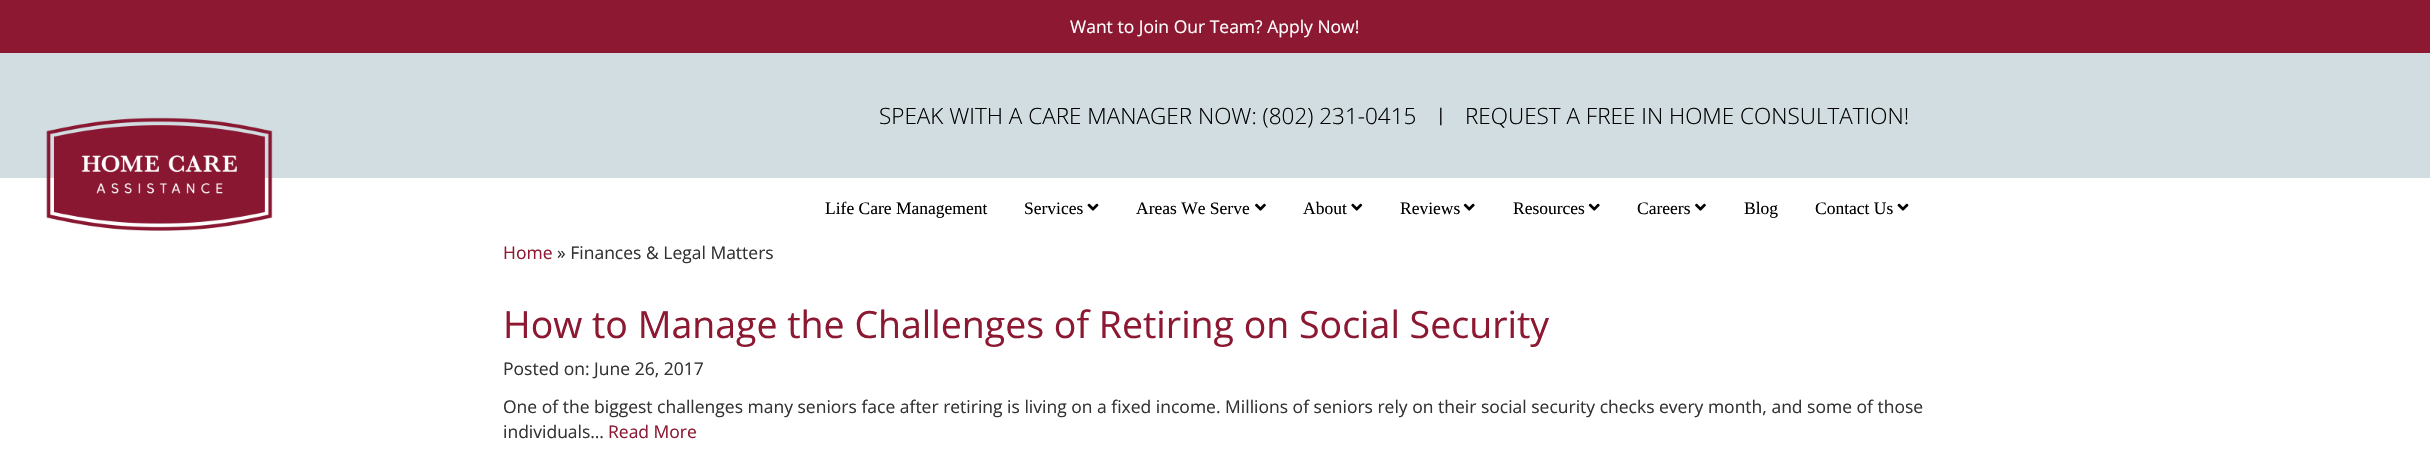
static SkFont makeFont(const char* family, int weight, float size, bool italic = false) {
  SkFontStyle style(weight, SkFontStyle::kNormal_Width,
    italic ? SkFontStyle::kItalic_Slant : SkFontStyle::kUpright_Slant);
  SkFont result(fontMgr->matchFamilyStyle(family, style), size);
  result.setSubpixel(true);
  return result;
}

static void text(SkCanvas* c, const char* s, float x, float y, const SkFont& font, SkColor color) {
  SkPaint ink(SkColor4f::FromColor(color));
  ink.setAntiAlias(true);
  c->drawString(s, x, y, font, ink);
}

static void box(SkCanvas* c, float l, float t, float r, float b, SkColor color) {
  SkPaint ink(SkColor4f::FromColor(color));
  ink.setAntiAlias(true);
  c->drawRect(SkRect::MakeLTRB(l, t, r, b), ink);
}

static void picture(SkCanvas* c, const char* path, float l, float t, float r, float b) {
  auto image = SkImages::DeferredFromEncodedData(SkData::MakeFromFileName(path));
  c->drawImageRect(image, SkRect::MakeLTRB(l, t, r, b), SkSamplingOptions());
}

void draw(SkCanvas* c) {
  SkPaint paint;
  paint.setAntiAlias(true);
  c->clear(0xffffffff);
  box(c, 0, 0, 2430, 53, 0xff8c1832);
  SkFont face1 = makeFont("Open Sans", 400, 17.5f);
  text(c, "Want to Join Our Team? Apply Now!", 1070, 33, face1, 0xffffffff);
  box(c, 0, 53, 2430, 178, 0xffd1dde1);
  SkFont face2 = makeFont("Open Sans", 300, 22.5f);
  text(c, "SPEAK WITH A CARE MANAGER NOW: (802) 231-0415", 879, 124, face2, 0xff000000);
  text(c, "|", 1436, 121, face1, 0xff000000);
  text(c, "REQUEST A FREE IN HOME CONSULTATION!", 1465, 124, face2, 0xff000000);
  picture(c, "img_01.png", 46, 117, 273, 231);
  SkFont face3 = makeFont("Liberation Serif", 400, 17.5f);
  text(c, "Life Care Management", 825, 214, face3, 0xff000000);
  text(c, "Services", 1024, 214, face3, 0xff000000);
  picture(c, "img_02.png", 1087, 203, 1099, 211);
  text(c, "Areas We Serve", 1136, 214, face3, 0xff000000);
  picture(c, "img_03.png", 1255, 203, 1266, 211);
  text(c, "About", 1303, 214, face3, 0xff000000);
  picture(c, "img_04.png", 1351, 203, 1363, 211);
  text(c, "Reviews", 1400, 214, face3, 0xff000000);
  picture(c, "img_05.png", 1463, 203, 1475, 211);
  text(c, "Resources", 1513, 214, face3, 0xff000000);
  picture(c, "img_05.png", 1588, 203, 1600, 211);
  text(c, "Careers", 1637, 214, face3, 0xff000000);
  picture(c, "img_03.png", 1695, 203, 1706, 211);
  text(c, "Blog", 1744, 214, face3, 0xff000000);
  text(c, "Contact Us", 1815, 214, face3, 0xff000000);
  picture(c, "img_02.png", 1897, 203, 1909, 211);
  text(c, "Home", 503, 259, face1, 0xff8c1832);
  text(c, "» Finances & Legal Matters", 557, 259, face1, 0xff333333);
  SkFont face4 = makeFont("Open Sans", 400, 37.5f);
  text(c, "How to Manage the Challenges of Retiring on Social Security", 503, 338, face4, 0xff8c1832);
  text(c, "Posted on: June 26, 2017", 503, 375, face1, 0xff333333);
  text(c, "One of the biggest challenges many seniors face after retiring is living on a fixed income. Millions of seniors rely on their social security checks every month, and some of those", 503, 413, face1, 0xff333333);
  text(c, "individuals…", 503, 438, face1, 0xff333333);
  text(c, "Read More", 608, 438, face1, 0xff8c1832);
}
